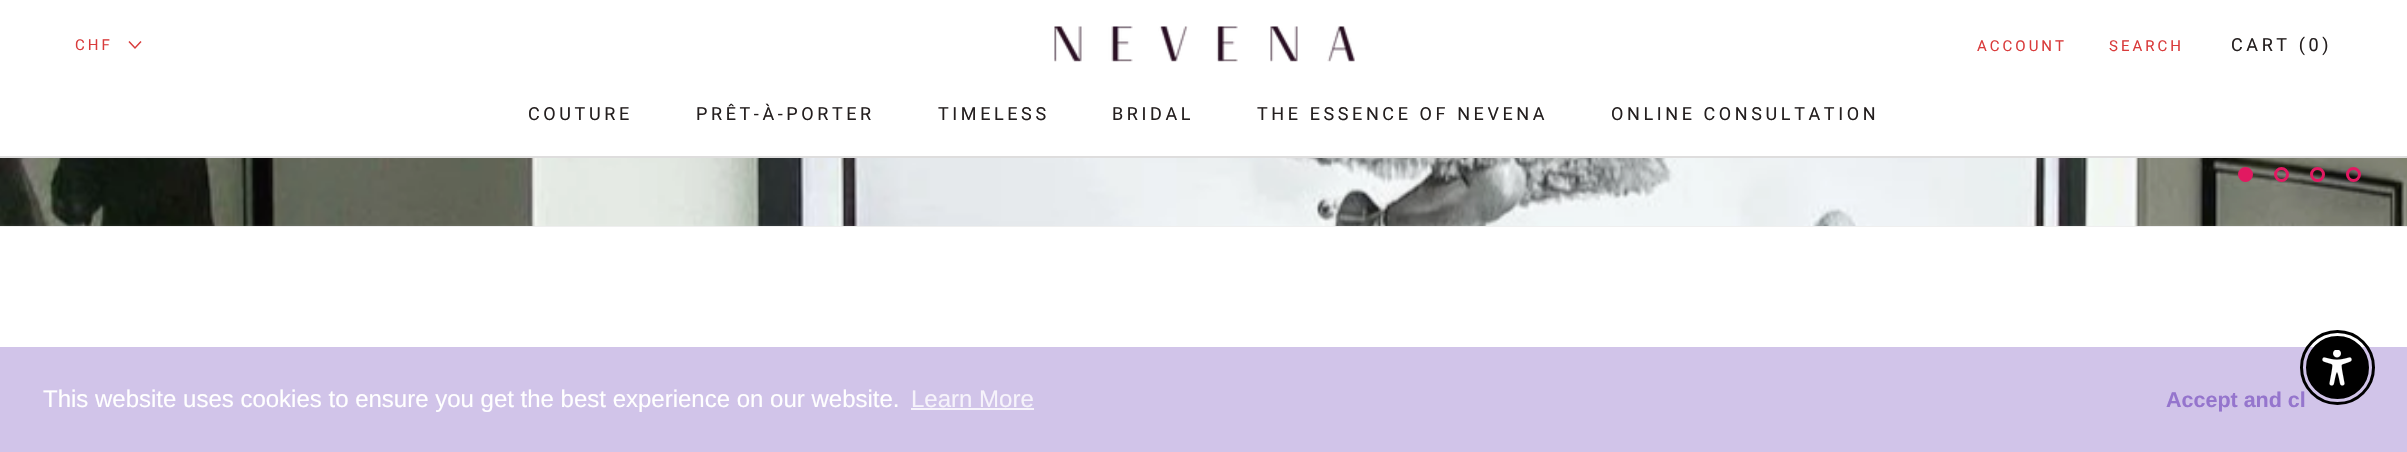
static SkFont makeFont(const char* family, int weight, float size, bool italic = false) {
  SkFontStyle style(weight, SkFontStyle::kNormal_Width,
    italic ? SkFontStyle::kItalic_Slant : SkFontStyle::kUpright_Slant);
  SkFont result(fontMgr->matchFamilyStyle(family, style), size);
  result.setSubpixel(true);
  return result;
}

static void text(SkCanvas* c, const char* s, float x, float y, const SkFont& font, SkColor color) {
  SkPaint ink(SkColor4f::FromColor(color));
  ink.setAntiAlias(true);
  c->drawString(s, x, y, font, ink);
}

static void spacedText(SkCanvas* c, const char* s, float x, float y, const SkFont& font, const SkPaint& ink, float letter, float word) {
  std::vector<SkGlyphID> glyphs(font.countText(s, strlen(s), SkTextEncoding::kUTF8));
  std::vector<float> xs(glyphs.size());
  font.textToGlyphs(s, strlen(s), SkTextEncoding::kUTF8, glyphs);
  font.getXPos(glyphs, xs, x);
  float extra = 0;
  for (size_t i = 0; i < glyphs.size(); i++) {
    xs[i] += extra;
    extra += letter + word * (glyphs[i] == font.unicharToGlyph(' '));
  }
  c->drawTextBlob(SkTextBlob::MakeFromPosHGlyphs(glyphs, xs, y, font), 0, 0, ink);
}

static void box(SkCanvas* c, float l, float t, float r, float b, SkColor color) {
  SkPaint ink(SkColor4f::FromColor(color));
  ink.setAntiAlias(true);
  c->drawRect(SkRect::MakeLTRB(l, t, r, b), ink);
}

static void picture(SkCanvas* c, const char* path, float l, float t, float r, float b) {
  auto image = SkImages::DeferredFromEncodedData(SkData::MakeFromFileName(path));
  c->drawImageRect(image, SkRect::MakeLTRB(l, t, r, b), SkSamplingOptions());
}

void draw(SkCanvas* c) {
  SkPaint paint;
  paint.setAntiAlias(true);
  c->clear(0xffefefef);
  box(c, 0, 0, 2407, 156, 0xffffffff);
  box(c, 0, 156, 2407, 158, 0xffdedddd);
  picture(c, "img_01.png", 1054, 26, 1355, 62);
  SkFont face1 = makeFont("Roboto", 400, 15);
  paint.setColor(0xffd93b3b);
  spacedText(c, "ACCOUNT", 1977, 51, face1, paint, 3, 0);
  spacedText(c, "SEARCH", 2109, 51, face1, paint, 3, 0);
  SkFont face2 = makeFont("Roboto", 400, 18);
  paint.setColor(0xff241f1f);
  spacedText(c, "CART (0)", 2231, 51, face2, paint, 3.6f, 0);
  paint.setColor(0xffd93b3b);
  spacedText(c, "CHF", 75, 50, face1, paint, 3, 0);
  paint.setStyle(SkPaint::kStroke_Style);
  paint.setStrokeWidth(1.5f);
  paint.setStrokeCap(SkPaint::kSquare_Cap);
  c->drawPath(SkPathBuilder().moveTo(140.5f, 42).lineTo(135, 48).lineTo(129.5f, 42).detach(), paint);
  paint.setStyle(SkPaint::kFill_Style);
  paint.setColor(0xff241f1f);
  spacedText(c, "COUTURE", 528, 120, face2, paint, 3.6f, 0);
  spacedText(c, "PRÊT-À-PORTER", 696, 120, face2, paint, 3.6f, 0);
  spacedText(c, "TIMELESS", 938, 120, face2, paint, 3.6f, 0);
  spacedText(c, "BRIDAL", 1112, 120, face2, paint, 3.6f, 0);
  spacedText(c, "THE ESSENCE OF NEVENA", 1257, 120, face2, paint, 3.6f, 0);
  spacedText(c, "ONLINE CONSULTATION", 1611, 120, face2, paint, 3.6f, 0);
  picture(c, "img_02.png", 0, 158, 2407, 226);
  paint.setColor(0xffe11961);
  c->drawCircle(2245.5f, 174.5f, 6, paint);
  paint.setStyle(SkPaint::kStroke_Style);
  paint.setStrokeWidth(3);
  paint.setStrokeCap(SkPaint::kButt_Cap);
  c->drawCircle(2245.5f, 174.5f, 6, paint);
  c->drawCircle(2281.5f, 174.5f, 6, paint);
  c->drawCircle(2317.5f, 174.5f, 6, paint);
  c->drawCircle(2353.5f, 174.5f, 6, paint);
  box(c, 0, 227, 2407, 347, 0xffffffff);
  box(c, 0, 347, 2407, 452, 0xffd1c4e9);
  SkFont face3 = makeFont("Liberation Sans", 400, 24);
  text(c, "This website uses cookies to ensure you get the best experience on our website.", 43, 407, face3, 0xffffffff);
  text(c, "Learn More", 911, 407, face3, 0xfff6f3fb);
  box(c, 911, 408, 1034, 410, 0xfff6f3fb);
  SkFont face4 = makeFont("Liberation Sans", 700, 21.5f);
  text(c, "Accept and cl", 2166, 407, face4, 0xff9575cd);
  paint.setColor(0xff000000);
  c->drawCircle(2337.5f, 367.5f, 36, paint);
  paint.setStyle(SkPaint::kFill_Style);
  c->drawCircle(2337.5f, 367.5f, 30.5f, paint);
  paint.setStyle(SkPaint::kStroke_Style);
  paint.setStrokeWidth(2);
  c->drawCircle(2337.5f, 367.5f, 30.5f, paint);
  picture(c, "img_03.png", 2322, 350, 2352, 386);
}
